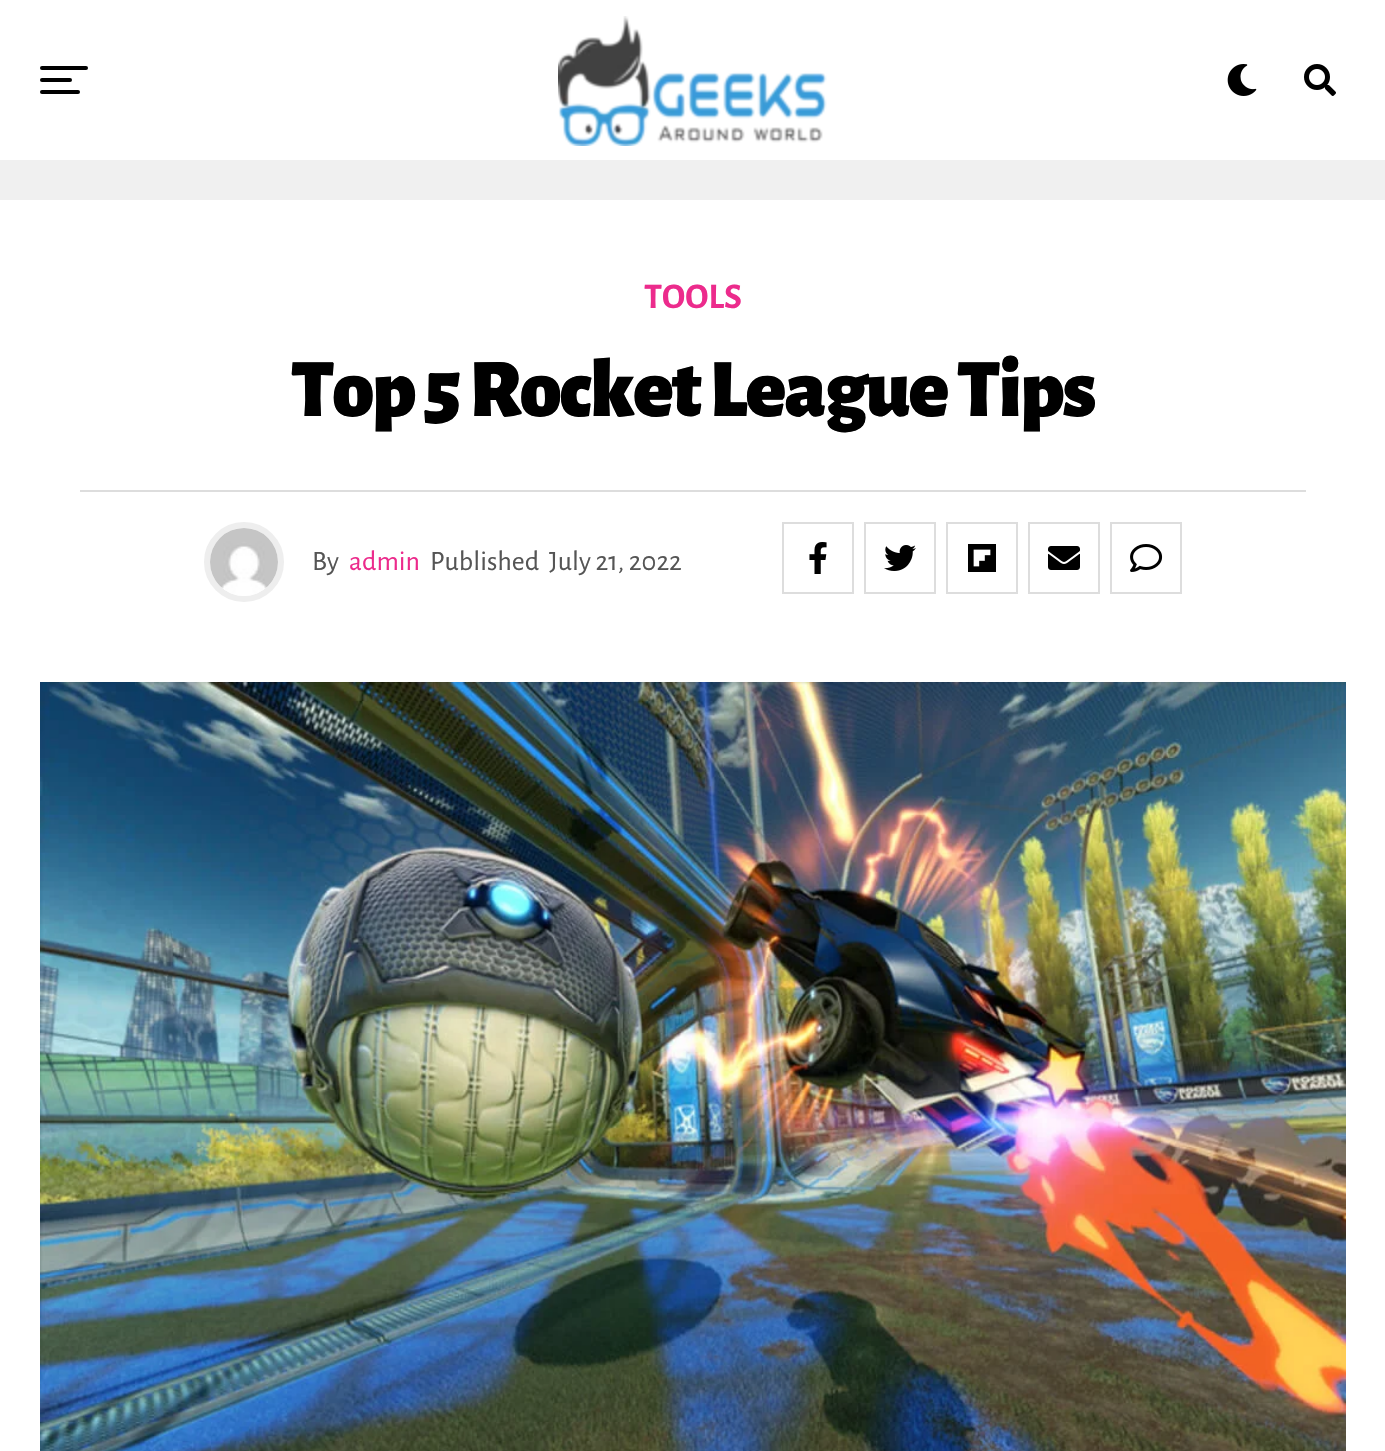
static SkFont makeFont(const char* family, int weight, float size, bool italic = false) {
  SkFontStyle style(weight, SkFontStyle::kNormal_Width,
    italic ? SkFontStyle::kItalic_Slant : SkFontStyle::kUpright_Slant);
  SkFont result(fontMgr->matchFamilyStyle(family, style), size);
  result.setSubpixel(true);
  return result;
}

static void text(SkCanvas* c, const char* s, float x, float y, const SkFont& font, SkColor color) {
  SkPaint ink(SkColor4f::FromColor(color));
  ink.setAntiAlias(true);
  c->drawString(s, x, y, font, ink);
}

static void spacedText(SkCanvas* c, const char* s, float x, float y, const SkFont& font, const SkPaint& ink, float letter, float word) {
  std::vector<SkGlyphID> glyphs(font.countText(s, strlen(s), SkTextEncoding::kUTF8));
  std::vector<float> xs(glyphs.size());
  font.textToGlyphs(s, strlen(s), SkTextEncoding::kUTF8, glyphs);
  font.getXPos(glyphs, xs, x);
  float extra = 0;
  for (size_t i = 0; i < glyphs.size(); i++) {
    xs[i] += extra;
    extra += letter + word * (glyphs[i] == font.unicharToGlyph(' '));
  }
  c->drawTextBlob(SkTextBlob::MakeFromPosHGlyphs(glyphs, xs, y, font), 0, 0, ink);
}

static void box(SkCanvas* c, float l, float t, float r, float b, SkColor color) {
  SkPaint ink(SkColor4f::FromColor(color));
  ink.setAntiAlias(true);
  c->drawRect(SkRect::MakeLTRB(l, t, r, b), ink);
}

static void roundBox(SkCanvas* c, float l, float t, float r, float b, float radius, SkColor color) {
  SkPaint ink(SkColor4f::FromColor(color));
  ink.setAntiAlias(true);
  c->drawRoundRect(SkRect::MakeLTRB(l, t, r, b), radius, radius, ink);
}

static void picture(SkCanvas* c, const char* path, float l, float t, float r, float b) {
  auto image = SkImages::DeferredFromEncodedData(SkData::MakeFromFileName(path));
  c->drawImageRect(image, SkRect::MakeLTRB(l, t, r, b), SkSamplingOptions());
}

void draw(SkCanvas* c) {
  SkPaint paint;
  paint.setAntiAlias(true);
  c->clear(0xfff0f0f0);
  box(c, 0, 0, 1385, 160, 0xffffffff);
  roundBox(c, 40, 66, 88, 70, 2, 0xff000000);
  roundBox(c, 40, 78, 72, 82, 2, 0xff000000);
  roundBox(c, 40, 90, 80, 94, 2, 0xff000000);
  picture(c, "img_01.png", 558, 16, 827, 146);
  picture(c, "img_02.png", 1227, 64, 1257, 96);
  picture(c, "img_03.png", 1304, 64, 1336, 96);
  box(c, 0, 200, 1385, 1451, 0xffffffff);
  SkFont face1 = makeFont("Alegreya Sans", 700, 36);
  text(c, "TOOLS", 644, 308, face1, 0xffec2b8c);
  SkFont face2 = makeFont("Alegreya Sans", 900, 83.25f);
  paint.setColor(0xff000000);
  spacedText(c, "Top 5 Rocket League Tips", 291, 416, face2, paint, -1.7f, 0);
  box(c, 80, 490, 1306, 492, 0xffdddddd);
  paint.setStyle(SkPaint::kStroke_Style);
  paint.setStrokeWidth(6);
  paint.setColor(0xffeeeeee);
  c->drawCircle(244, 562, 37, paint);
  picture(c, "img_04.png", 210, 528, 278, 596);
  SkFont face3 = makeFont("Alegreya Sans", 400, 28);
  text(c, "By", 312, 570, face3, 0xff555555);
  text(c, "admin", 349, 570, face3, 0xffec2b8c);
  text(c, "Published", 430, 570, face3, 0xff555555);
  text(c, "July 21, 2022", 549, 570, face3, 0xff555555);
  paint.setStrokeWidth(2);
  paint.setColor(0xffdddddd);
  c->drawRect(SkRect::MakeLTRB(783, 523, 853, 593), paint);
  picture(c, "img_05.png", 809, 542, 827, 574);
  c->drawRect(SkRect::MakeLTRB(865, 523, 935, 593), paint);
  picture(c, "img_06.png", 884, 545, 916, 571);
  c->drawRect(SkRect::MakeLTRB(947, 523, 1017, 593), paint);
  picture(c, "img_07.png", 968, 544, 996, 572);
  c->drawRect(SkRect::MakeLTRB(1029, 523, 1099, 593), paint);
  picture(c, "img_08.png", 1048, 546, 1080, 570);
  c->drawRect(SkRect::MakeLTRB(1111, 523, 1181, 593), paint);
  picture(c, "img_09.png", 1130, 544, 1163, 572);
  picture(c, "img_10.png", 40, 682, 1346, 1451);
}
